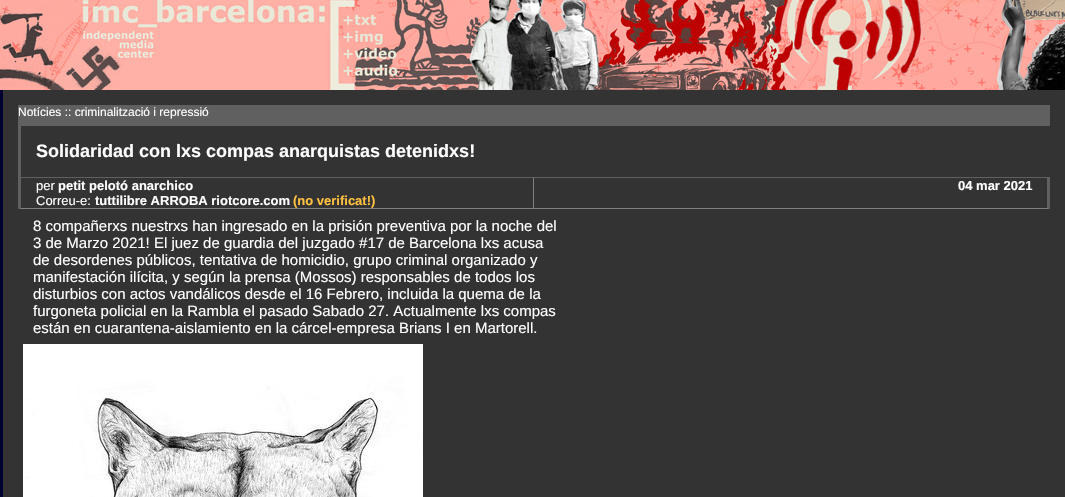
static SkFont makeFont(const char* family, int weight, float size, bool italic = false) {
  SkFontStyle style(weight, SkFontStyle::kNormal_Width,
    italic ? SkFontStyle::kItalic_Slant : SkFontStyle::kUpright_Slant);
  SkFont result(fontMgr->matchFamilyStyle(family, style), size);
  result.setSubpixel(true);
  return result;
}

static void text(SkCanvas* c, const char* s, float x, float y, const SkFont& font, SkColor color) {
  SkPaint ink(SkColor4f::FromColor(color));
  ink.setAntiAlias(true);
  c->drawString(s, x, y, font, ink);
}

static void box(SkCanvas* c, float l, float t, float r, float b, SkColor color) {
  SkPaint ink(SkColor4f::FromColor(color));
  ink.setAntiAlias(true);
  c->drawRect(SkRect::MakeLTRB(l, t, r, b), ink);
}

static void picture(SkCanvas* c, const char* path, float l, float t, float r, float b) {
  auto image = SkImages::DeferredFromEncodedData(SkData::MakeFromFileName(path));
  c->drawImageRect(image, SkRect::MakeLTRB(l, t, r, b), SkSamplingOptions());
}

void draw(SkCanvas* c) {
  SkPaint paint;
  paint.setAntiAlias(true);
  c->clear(0xff333333);
  picture(c, "img_01.png", 0, 0, 157, 90);
  picture(c, "img_02.png", 157, 0, 1065, 90);
  box(c, 0, 90, 3, 497, 0xff000033);
  box(c, 18, 105, 1050, 119, 0xff606060);
  SkFont face1 = makeFont("Liberation Sans", 400, 12);
  text(c, "Notícies :: criminalització i repressió", 18, 116, face1, 0xffffffff);
  box(c, 18, 119, 1050, 126, 0xff606060);
  box(c, 18, 177, 1050, 178, 0xff606060);
  box(c, 18, 119, 21, 178, 0xff606060);
  SkFont face2 = makeFont("Liberation Sans", 700, 18);
  text(c, "Solidaridad con lxs compas anarquistas detenidxs!", 36, 157, face2, 0xffffffff);
  box(c, 533, 178, 534, 209, 0xff808080);
  paint.setColor(0xff808080);
  c->drawPath(SkPathBuilder().moveTo(534, 209).lineTo(18, 209).lineTo(21, 208).lineTo(533, 208).close().detach(), paint);
  paint.setColor(0xff606060);
  c->drawPath(SkPathBuilder().moveTo(18, 209).lineTo(18, 178).lineTo(21, 178).lineTo(21, 208).close().detach(), paint);
  SkFont face3 = makeFont("Liberation Sans", 400, 13);
  text(c, "per", 36, 190, face3, 0xffffffff);
  SkFont face4 = makeFont("Liberation Sans", 700, 13);
  text(c, "petit pelotó anarchico", 58, 190, face4, 0xffffffff);
  text(c, "Correu-e:", 36, 205, face3, 0xffffffff);
  text(c, "tuttilibre ARROBA riotcore.com", 95, 205, face4, 0xffffffff);
  text(c, "(no verificat!)", 293, 205, face4, 0xffffc140);
  c->drawPath(SkPathBuilder().moveTo(1050, 178).lineTo(1050, 209).lineTo(1047, 208).lineTo(1047, 178).close().detach(), paint);
  paint.setColor(0xff808080);
  c->drawPath(SkPathBuilder().moveTo(1050, 209).lineTo(534, 209).lineTo(534, 208).lineTo(1047, 208).close().detach(), paint);
  text(c, "04 mar 2021", 958, 190, face4, 0xffffffff);
  SkFont face5 = makeFont("Liberation Sans", 400, 15);
  text(c, "8 compañerxs nuestrxs han ingresado en la prisión preventiva por la noche del", 33, 231, face5, 0xffffffff);
  text(c, "3 de Marzo 2021! El juez de guardia del juzgado #17 de Barcelona lxs acusa", 33, 248, face5, 0xffffffff);
  text(c, "de desordenes públicos, tentativa de homicidio, grupo criminal organizado y", 33, 265, face5, 0xffffffff);
  text(c, "manifestación ilícita, y según la prensa (Mossos) responsables de todos los", 33, 282, face5, 0xffffffff);
  text(c, "disturbios con actos vandálicos desde el 16 Febrero, incluida la quema de la", 33, 299, face5, 0xffffffff);
  text(c, "furgoneta policial en la Rambla el pasado Sabado 27. Actualmente lxs compas", 33, 316, face5, 0xffffffff);
  text(c, "están en cuarantena-aislamiento en la cárcel-empresa Brians I en Martorell.", 33, 333, face5, 0xffffffff);
  picture(c, "img_03.png", 23, 344, 423, 497);
}
